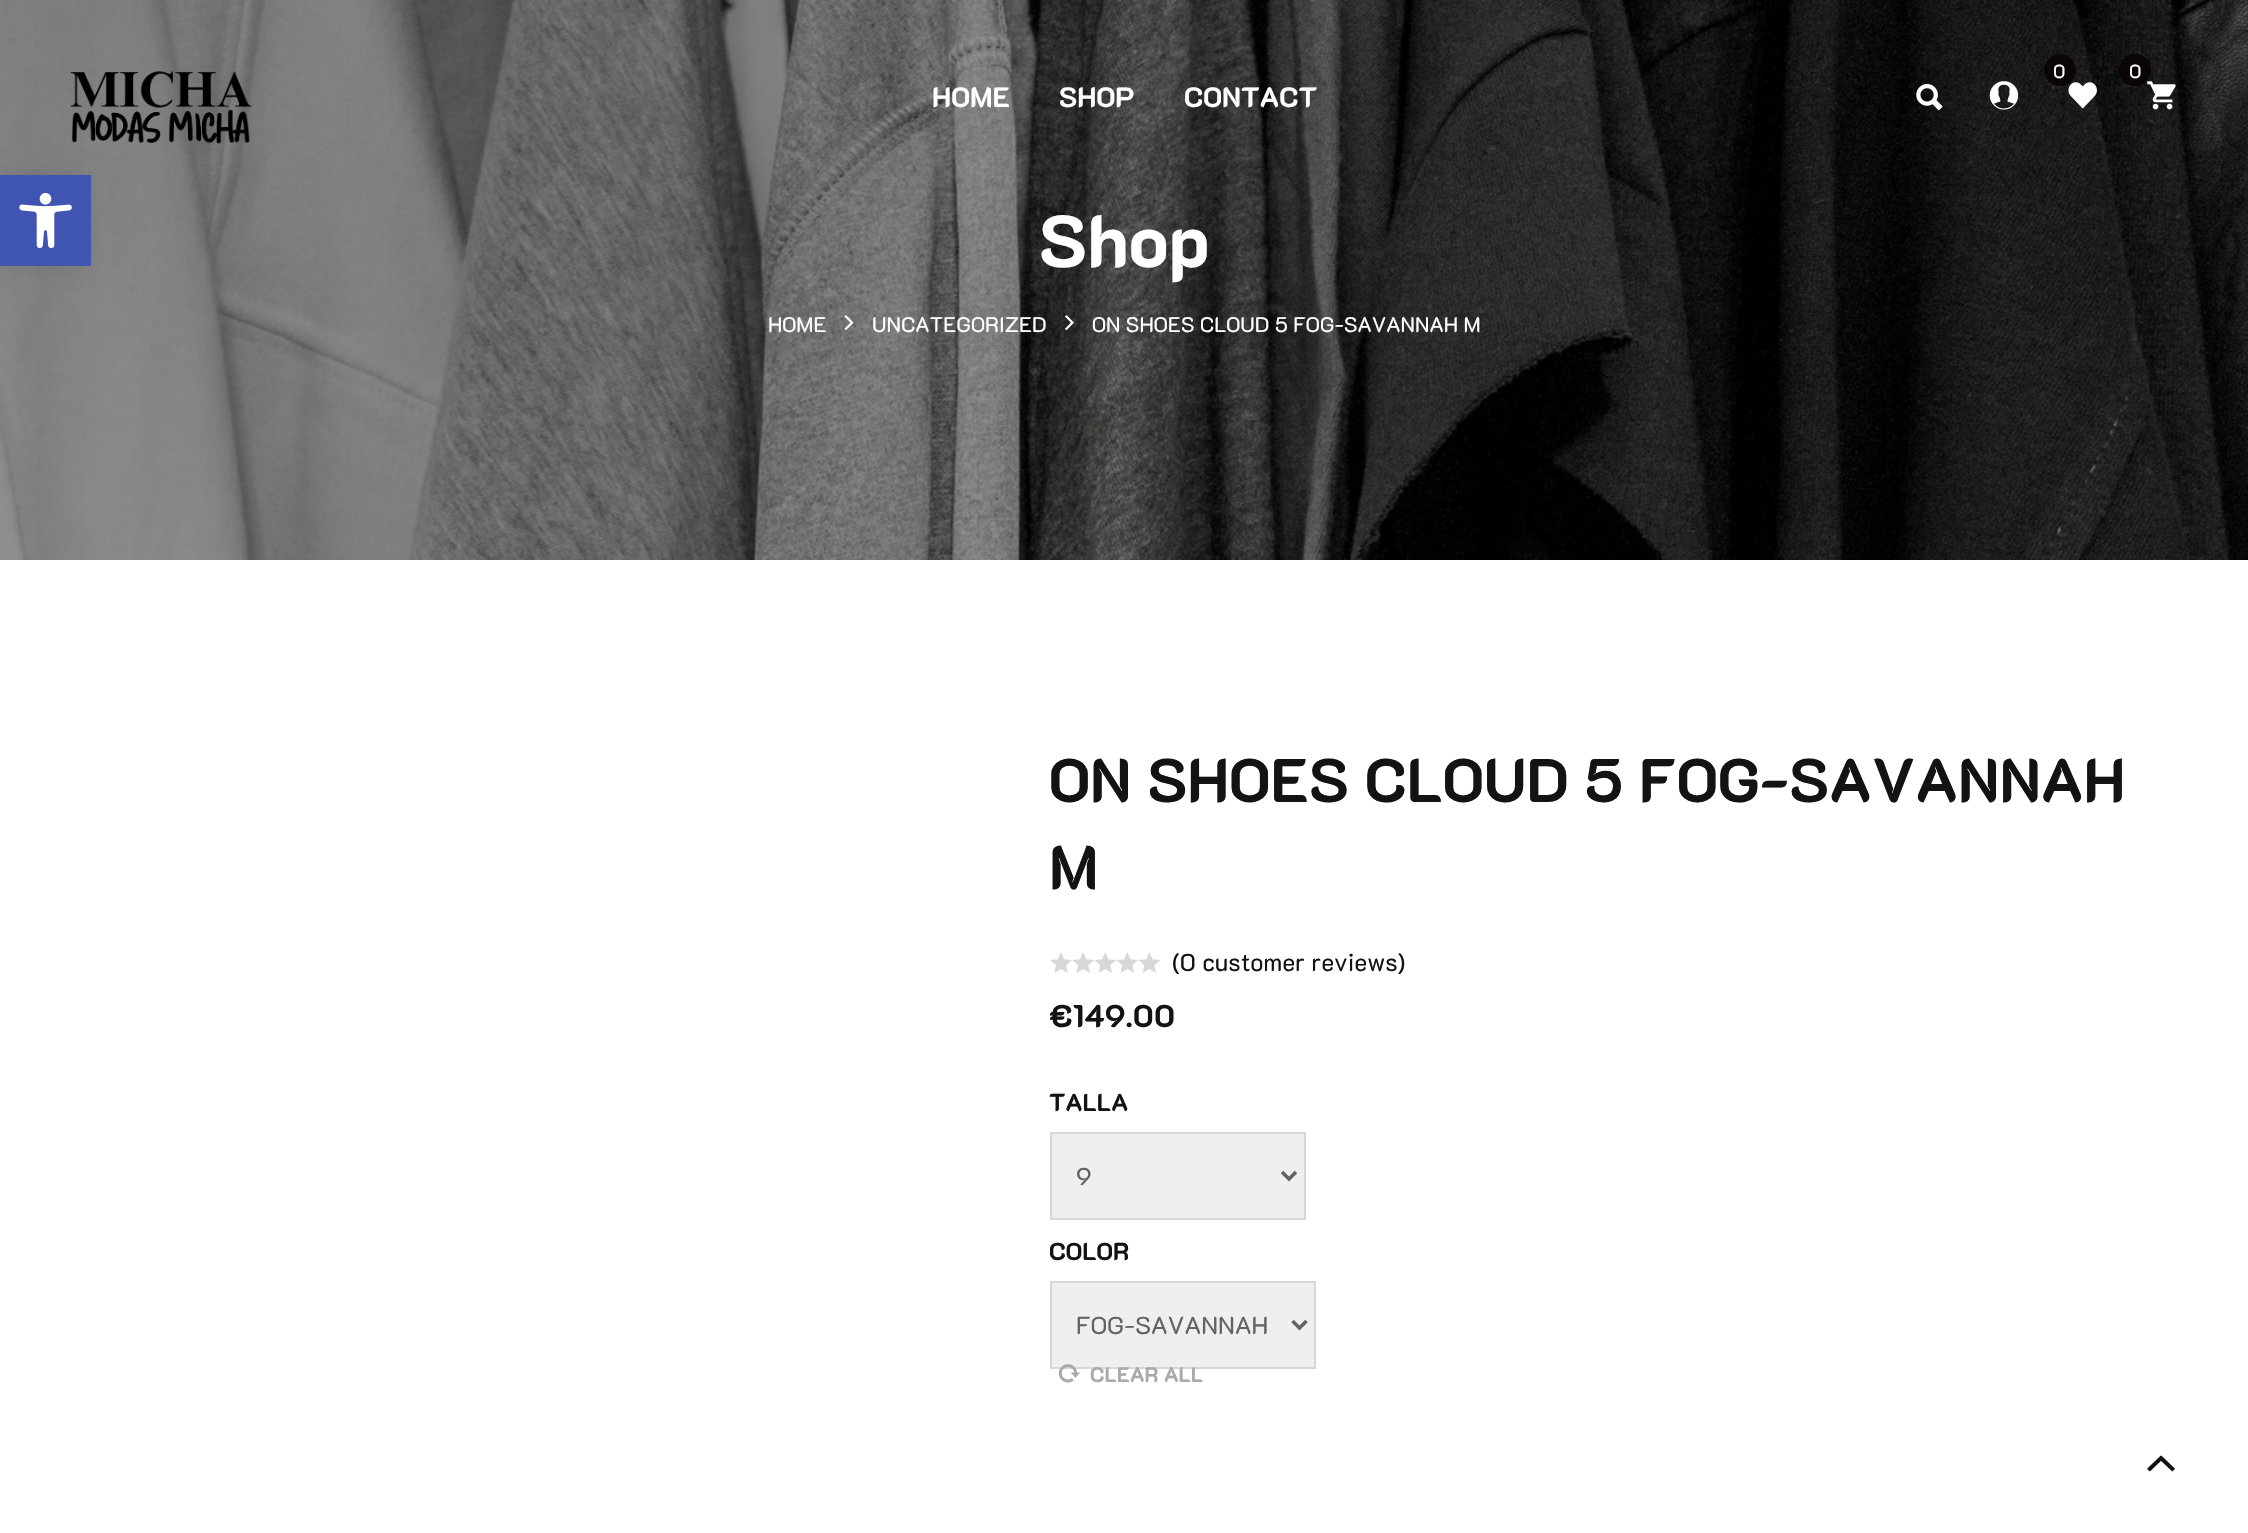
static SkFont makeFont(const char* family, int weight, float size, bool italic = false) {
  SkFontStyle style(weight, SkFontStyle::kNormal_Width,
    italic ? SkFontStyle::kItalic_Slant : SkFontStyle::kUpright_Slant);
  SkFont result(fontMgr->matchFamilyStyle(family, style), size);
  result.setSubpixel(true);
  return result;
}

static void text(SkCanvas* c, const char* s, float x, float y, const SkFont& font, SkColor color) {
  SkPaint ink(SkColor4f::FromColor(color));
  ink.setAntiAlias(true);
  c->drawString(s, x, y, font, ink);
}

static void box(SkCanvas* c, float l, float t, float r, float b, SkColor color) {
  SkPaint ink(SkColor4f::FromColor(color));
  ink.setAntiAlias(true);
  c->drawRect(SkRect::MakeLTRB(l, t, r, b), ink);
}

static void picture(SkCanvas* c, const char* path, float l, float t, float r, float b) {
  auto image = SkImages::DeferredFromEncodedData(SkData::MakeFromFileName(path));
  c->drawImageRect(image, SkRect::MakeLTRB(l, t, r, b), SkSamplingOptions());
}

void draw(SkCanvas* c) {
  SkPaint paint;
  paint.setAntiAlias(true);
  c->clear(0xffffffff);
  picture(c, "img_07.png", 0, 0, 2248, 560);
  paint.setColor(0x1a000000);
  paint.setMaskFilter(SkMaskFilter::MakeBlur(kNormal_SkBlurStyle, 9));
  c->drawRect(SkRect::MakeLTRB(0, 175, 91, 266), paint);
  paint.setMaskFilter(nullptr);
  box(c, 0, 175, 91, 266, 0xff4054b2);
  picture(c, "img_01.png", 19, 193, 72, 249);
  picture(c, "img_02.png", 70, 71, 252, 144);
  SkFont face1 = makeFont("K2D", 700, 28);
  text(c, "HOME", 932, 107, face1, 0xffffffff);
  text(c, "SHOP", 1059, 107, face1, 0xffffffff);
  text(c, "CONTACT", 1184, 107, face1, 0xffffffff);
  picture(c, "img_03.png", 2068, 82, 2097, 109);
  paint.setColor(0xff0a0404);
  c->drawCircle(2060, 70, 16, paint);
  SkFont face2 = makeFont("K2D", 400, 19);
  text(c, "0", 2053, 78, face2, 0xffffffff);
  picture(c, "img_04.png", 2147, 81, 2176, 110);
  c->drawCircle(2135, 70, 16, paint);
  text(c, "0", 2129, 78, face2, 0xffffffff);
  picture(c, "img_05.png", 1916, 84, 1943, 111);
  picture(c, "img_06.png", 1989, 81, 2019, 110);
  SkFont face3 = makeFont("K2D", 800, 73.5f);
  text(c, "Shop", 1039, 267, face3, 0xffffffff);
  SkFont face4 = makeFont("K2D", 400, 21);
  text(c, "HOME", 768, 332, face4, 0xffffffff);
  picture(c, "img_08.png", 844, 315, 854, 331);
  text(c, "UNCATEGORIZED", 872, 332, face4, 0xffffffff);
  picture(c, "img_09.png", 1065, 315, 1074, 331);
  text(c, "ON SHOES CLOUD 5 FOG-SAVANNAH M", 1092, 332, face4, 0xffffffff);
  SkFont face5 = makeFont("K2D", 700, 61.25f);
  text(c, "ON SHOES CLOUD 5 FOG-SAVANNAH", 1049, 802, face5, 0xff131313);
  text(c, "M", 1049, 889, face5, 0xff131313);
  picture(c, "img_10.png", 1050, 952, 1160, 973);
  SkFont face6 = makeFont("K2D", 400, 24.5f);
  text(c, "(0 customer reviews)", 1172, 971, face6, 0xff131313);
  SkFont face7 = makeFont("K2D", 700, 31.5f);
  text(c, "€149.00", 1049, 1027, face7, 0xff131313);
  SkFont face8 = makeFont("K2D", 700, 24.5f);
  text(c, "TALLA", 1049, 1111, face8, 0xff131313);
  paint.setColor(0xffefefef);
  c->drawRect(SkRect::MakeLTRB(1051, 1133, 1305, 1219), paint);
  paint.setStyle(SkPaint::kStroke_Style);
  paint.setStrokeWidth(2);
  paint.setColor(0xffd7d7d7);
  c->drawRect(SkRect::MakeLTRB(1051, 1133, 1305, 1219), paint);
  paint.setStrokeWidth(3.5f);
  paint.setColor(0xff626262);
  c->drawPath(SkPathBuilder().moveTo(1282, 1172).lineTo(1289, 1179).lineTo(1296, 1172).detach(), paint);
  text(c, "9", 1076, 1185, face6, 0xff626262);
  text(c, "COLOR", 1049, 1260, face8, 0xff131313);
  paint.setStyle(SkPaint::kFill_Style);
  paint.setColor(0xffefefef);
  c->drawRect(SkRect::MakeLTRB(1051, 1282, 1315, 1368), paint);
  paint.setStyle(SkPaint::kStroke_Style);
  paint.setStrokeWidth(2);
  paint.setColor(0xffd7d7d7);
  c->drawRect(SkRect::MakeLTRB(1051, 1282, 1315, 1368), paint);
  paint.setStrokeWidth(3.5f);
  paint.setColor(0xff626262);
  c->drawPath(SkPathBuilder().moveTo(1292.5f, 1321).lineTo(1299.5f, 1328).lineTo(1306.5f, 1321).detach(), paint);
  text(c, "FOG-SAVANNAH", 1076, 1334, face6, 0xff626262);
  picture(c, "img_11.png", 1058, 1364, 1080, 1383);
  SkFont face9 = makeFont("K2D", 700, 21);
  text(c, "CLEAR ALL", 1090, 1382, face9, 0xffaaaaaa);
  picture(c, "img_12.png", 2147, 1455, 2175, 1472);
}
